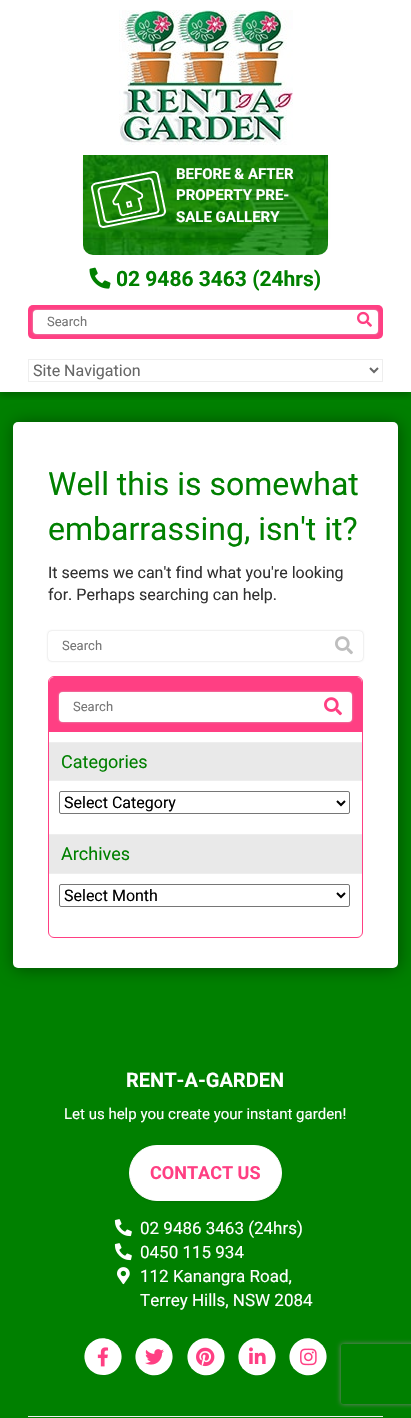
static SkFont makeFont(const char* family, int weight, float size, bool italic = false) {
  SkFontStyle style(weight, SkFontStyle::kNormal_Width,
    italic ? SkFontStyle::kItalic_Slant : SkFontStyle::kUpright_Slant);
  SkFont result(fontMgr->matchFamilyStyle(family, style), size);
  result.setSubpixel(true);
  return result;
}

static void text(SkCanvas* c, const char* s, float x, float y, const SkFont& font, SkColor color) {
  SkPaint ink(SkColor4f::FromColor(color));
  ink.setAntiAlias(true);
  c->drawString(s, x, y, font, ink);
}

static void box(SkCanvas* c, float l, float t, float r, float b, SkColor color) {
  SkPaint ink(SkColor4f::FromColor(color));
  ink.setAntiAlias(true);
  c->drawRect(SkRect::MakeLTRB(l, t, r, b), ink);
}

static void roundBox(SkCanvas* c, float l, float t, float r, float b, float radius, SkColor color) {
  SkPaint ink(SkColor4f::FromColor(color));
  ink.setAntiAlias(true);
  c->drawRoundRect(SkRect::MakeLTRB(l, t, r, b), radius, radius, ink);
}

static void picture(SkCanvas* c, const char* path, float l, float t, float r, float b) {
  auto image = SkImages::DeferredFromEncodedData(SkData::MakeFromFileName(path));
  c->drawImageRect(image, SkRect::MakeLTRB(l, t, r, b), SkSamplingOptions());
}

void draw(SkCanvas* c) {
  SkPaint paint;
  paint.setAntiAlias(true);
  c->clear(0xffffffff);
  box(c, 0, 392, 411, 1418, 0xff008000);
  c->save();
  c->clipRect(SkRect::MakeLTRB(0, 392, 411, 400));
  paint.setColor(0x33000000);
  paint.setMaskFilter(SkMaskFilter::MakeBlur(kNormal_SkBlurStyle, 3));
  c->drawRect(SkRect::MakeLTRB(0, 4, 411, 396), paint);
  paint.setMaskFilter(nullptr);
  c->restore();
  picture(c, "img_01.png", 119, 10, 293, 145);
  picture(c, "img_02.png", 83, 155, 328, 255);
  c->save();
  c->clipPath(SkPathBuilder(SkPathFillType::kEvenOdd).moveTo(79, 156).lineTo(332, 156).lineTo(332, 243).lineTo(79, 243).close().moveTo(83, 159).lineTo(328, 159).lineTo(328, 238).lineTo(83, 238).close().detach(), true);
  paint.setColor(0x1a000000);
  paint.setMaskFilter(SkMaskFilter::MakeBlur(kNormal_SkBlurStyle, 1));
  c->drawRect(SkRect::MakeLTRB(83, 160, 328, 239), paint);
  paint.setMaskFilter(nullptr);
  c->restore();
  picture(c, "img_03.png", 91, 171, 166, 228);
  SkFont face1 = makeFont("Roboto", 700, 15);
  text(c, "BEFORE & AFTER", 176, 179, face1, 0xffffffff);
  text(c, "PROPERTY PRE-", 176, 200, face1, 0xffffffff);
  text(c, "SALE GALLERY", 176, 222, face1, 0xffffffff);
  picture(c, "img_04.png", 89, 267, 111, 289);
  SkFont face2 = makeFont("Roboto", 700, 21);
  text(c, "02 9486 3463 (24hrs)", 116, 286, face2, 0xff008000);
  roundBox(c, 28, 305, 383, 339, 5, 0xffff3f83);
  paint.setColor(0xffcccccc);
  paint.setMaskFilter(SkMaskFilter::MakeBlur(kNormal_SkBlurStyle, 1));
  c->drawRoundRect(SkRect::MakeLTRB(33, 310, 378, 334), 4, 4, paint);
  paint.setMaskFilter(nullptr);
  roundBox(c, 33, 310, 378, 334, 4, 0xffffffff);
  SkFont face3 = makeFont("Roboto", 400, 13);
  text(c, "Search", 47, 326, face3, 0xff757575);
  picture(c, "img_05.png", 357, 311, 372, 327);
  paint.setStyle(SkPaint::kStroke_Style);
  paint.setStrokeWidth(1);
  paint.setColor(0xffeeeeee);
  c->drawRect(SkRect::MakeLTRB(28.5f, 359.5f, 382.5f, 381.5f), paint);
  paint.setStrokeWidth(2);
  paint.setColor(0xff676767);
  c->drawPath(SkPathBuilder().moveTo(370, 368).lineTo(374, 372).lineTo(378, 368).detach(), paint);
  SkFont face4 = makeFont("Roboto", 400, 16);
  text(c, "Site Navigation", 33, 376, face4, 0xff676767);
  paint.setStyle(SkPaint::kFill_Style);
  paint.setColor(0x66000000);
  paint.setMaskFilter(SkMaskFilter::MakeBlur(kNormal_SkBlurStyle, 8.5f));
  c->drawRoundRect(SkRect::MakeLTRB(14, 423, 399, 969), 5, 5, paint);
  paint.setMaskFilter(nullptr);
  roundBox(c, 13, 422, 398, 968, 5, 0xffffffff);
  SkFont face5 = makeFont("Roboto", 400, 32);
  text(c, "Well this is somewhat", 48, 495, face5, 0xff008000);
  text(c, "embarrassing, isn't it?", 48, 540, face5, 0xff008000);
  text(c, "It seems we can't find what you're looking", 48, 578, face4, 0xff313131);
  text(c, "for. Perhaps searching can help.", 48, 600, face4, 0xff313131);
  paint.setColor(0xffcccccc);
  paint.setMaskFilter(SkMaskFilter::MakeBlur(kNormal_SkBlurStyle, 1));
  c->drawRoundRect(SkRect::MakeLTRB(48, 631, 363, 661), 4, 4, paint);
  paint.setMaskFilter(nullptr);
  roundBox(c, 48, 631, 363, 661, 4, 0xffffffff);
  text(c, "Search", 62, 650, face3, 0xff757575);
  picture(c, "img_06.png", 335, 636, 353, 655);
  paint.setStyle(SkPaint::kStroke_Style);
  paint.setStrokeWidth(1);
  paint.setColor(0xffff3f83);
  c->drawRoundRect(SkRect::MakeLTRB(48.5f, 676.5f, 362.5f, 937.5f), 5.5f, 5.5f, paint);
  paint.setStyle(SkPaint::kFill_Style);
  c->drawPath(SkPathBuilder().moveTo(55, 677).lineTo(356, 677).cubicTo(359.5f, 677, 362, 679.5f, 362, 683).lineTo(362, 732).lineTo(49, 732).lineTo(49, 683).cubicTo(49, 679.5f, 51.5f, 677, 55, 677).close().detach(), paint);
  paint.setColor(0xffcccccc);
  paint.setMaskFilter(SkMaskFilter::MakeBlur(kNormal_SkBlurStyle, 1));
  c->drawRoundRect(SkRect::MakeLTRB(59, 692, 352, 722), 4, 4, paint);
  paint.setMaskFilter(nullptr);
  roundBox(c, 59, 692, 352, 722, 4, 0xffffffff);
  text(c, "Search", 73, 711, face3, 0xff757575);
  picture(c, "img_07.png", 324, 697, 342, 716);
  box(c, 49, 743, 362, 780, 0xffe9e9e9);
  box(c, 49, 742, 362, 743, 0xffeeeeee);
  box(c, 49, 780, 362, 781, 0xffeeeeee);
  SkFont face6 = makeFont("Roboto", 400, 18);
  text(c, "Categories", 61, 768, face6, 0xff008000);
  paint.setStyle(SkPaint::kStroke_Style);
  paint.setColor(0xff767676);
  c->drawRoundRect(SkRect::MakeLTRB(59.5f, 791.5f, 349.5f, 813.5f), 1.5f, 1.5f, paint);
  paint.setStrokeWidth(2);
  paint.setColor(0xff000000);
  c->drawPath(SkPathBuilder().moveTo(337, 801).lineTo(341, 805).lineTo(345, 801).detach(), paint);
  text(c, "Select Category", 64, 808, face4, 0xff000000);
  box(c, 49, 835, 362, 873, 0xffe9e9e9);
  box(c, 49, 834, 362, 835, 0xffeeeeee);
  box(c, 49, 873, 362, 874, 0xffeeeeee);
  text(c, "Archives", 61, 860, face6, 0xff008000);
  paint.setStrokeWidth(1);
  paint.setColor(0xff767676);
  c->drawRoundRect(SkRect::MakeLTRB(59.5f, 884.5f, 349.5f, 906.5f), 1.5f, 1.5f, paint);
  paint.setStrokeWidth(2);
  paint.setColor(0xff000000);
  c->drawPath(SkPathBuilder().moveTo(337, 893).lineTo(341, 897).lineTo(345, 893).detach(), paint);
  text(c, "Select Month", 64, 901, face4, 0xff000000);
  SkFont face7 = makeFont("Roboto", 700, 20);
  text(c, "RENT-A-GARDEN", 126, 1087, face7, 0xffffffff);
  SkFont face8 = makeFont("Roboto", 400, 15);
  text(c, "Let us help you create your instant garden!", 64, 1119, face8, 0xffffffff);
  paint.setStyle(SkPaint::kFill_Style);
  paint.setColor(0x1a000000);
  paint.setMaskFilter(SkMaskFilter::MakeBlur(kNormal_SkBlurStyle, 1));
  c->drawRoundRect(SkRect::MakeLTRB(129, 1146, 282, 1202), 28, 28, paint);
  paint.setMaskFilter(nullptr);
  paint.setColor(0xffffffff);
  c->drawRoundRect(SkRect::MakeLTRB(129.5f, 1145.5f, 281.5f, 1200.5f), 27.5f, 27.5f, paint);
  paint.setStyle(SkPaint::kStroke_Style);
  paint.setStrokeWidth(1);
  c->drawRoundRect(SkRect::MakeLTRB(129.5f, 1145.5f, 281.5f, 1200.5f), 27.5f, 27.5f, paint);
  SkFont face9 = makeFont("Roboto", 700, 18);
  text(c, "CONTACT US", 150, 1179, face9, 0xffff3f83);
  picture(c, "img_08.png", 114, 1219, 132, 1237);
  SkFont face10 = makeFont("Roboto", 400, 17);
  text(c, "02 9486 3463 (24hrs)", 140, 1234, face10, 0xffffffff);
  picture(c, "img_08.png", 114, 1243, 132, 1261);
  text(c, "0450 115 934", 140, 1258, face10, 0xffffffff);
  picture(c, "img_09.png", 117, 1267, 130, 1285);
  text(c, "112 Kanangra Road,", 140, 1282, face10, 0xffffffff);
  text(c, "Terrey Hills, NSW 2084", 140, 1306, face10, 0xffffffff);
  paint.setStyle(SkPaint::kFill_Style);
  c->drawPath(SkPathBuilder().moveTo(90, 1343.5f).cubicTo(102, 1331.5f, 123, 1341.5f, 121.5f, 1358.5f).cubicTo(121, 1363, 119, 1367, 116, 1370).cubicTo(113, 1373, 109, 1374.5f, 105, 1375).cubicTo(87.5f, 1376.5f, 77.5f, 1356, 90, 1343.5f).close().detach(), paint);
  picture(c, "img_10.png", 97, 1347, 109, 1367);
  c->drawPath(SkPathBuilder().moveTo(141, 1343.5f).cubicTo(153, 1331.5f, 174, 1341.5f, 172.5f, 1358.5f).cubicTo(172, 1363, 170, 1367, 167, 1370).cubicTo(155, 1382, 134, 1372, 135.5f, 1355).cubicTo(136, 1350.5f, 138, 1346.5f, 141, 1343.5f).close().detach(), paint);
  picture(c, "img_11.png", 145, 1349, 164, 1365);
  c->drawPath(SkPathBuilder().moveTo(193, 1343.5f).cubicTo(205, 1331.5f, 226, 1341.5f, 224.5f, 1358.5f).cubicTo(224, 1363, 222, 1367, 219, 1370).cubicTo(207, 1382, 186, 1372, 187.5f, 1355).cubicTo(188, 1350.5f, 190, 1346.5f, 193, 1343.5f).close().detach(), paint);
  picture(c, "img_12.png", 196, 1347, 215, 1367);
  c->drawPath(SkPathBuilder().moveTo(244, 1343.5f).cubicTo(256, 1331.5f, 277, 1341.5f, 275.5f, 1358.5f).cubicTo(275, 1363, 273, 1367, 270, 1370).cubicTo(258, 1382, 237, 1372, 238.5f, 1355).cubicTo(239, 1350.5f, 241, 1346.5f, 244, 1343.5f).close().detach(), paint);
  picture(c, "img_13.png", 249, 1347, 266, 1364);
  c->drawPath(SkPathBuilder().moveTo(295, 1343.5f).cubicTo(307, 1331.5f, 328, 1341.5f, 326.5f, 1358.5f).cubicTo(326, 1363, 324, 1367, 321, 1370).cubicTo(309, 1382, 288, 1372, 289.5f, 1355).cubicTo(290, 1350.5f, 292, 1346.5f, 295, 1343.5f).close().detach(), paint);
  picture(c, "img_14.png", 300, 1348, 317, 1366);
  box(c, 28, 1416, 383, 1417, 0xffeeeeee);
  c->save();
  c->clipPath(SkPathBuilder(SkPathFillType::kEvenOdd).moveTo(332, 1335).lineTo(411, 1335).lineTo(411, 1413).lineTo(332, 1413).close().moveTo(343, 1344).lineTo(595, 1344).cubicTo(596, 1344, 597, 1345, 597, 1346).lineTo(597, 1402).cubicTo(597, 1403, 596, 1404, 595, 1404).lineTo(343, 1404).cubicTo(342, 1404, 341, 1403, 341, 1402).lineTo(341, 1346).cubicTo(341, 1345, 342, 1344, 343, 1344).close().detach(), true);
  paint.setColor(0xff808080);
  paint.setMaskFilter(SkMaskFilter::MakeBlur(kNormal_SkBlurStyle, 2.5f));
  c->drawRoundRect(SkRect::MakeLTRB(341, 1344, 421, 1404), 2, 2, paint);
  paint.setMaskFilter(nullptr);
  c->restore();
}
